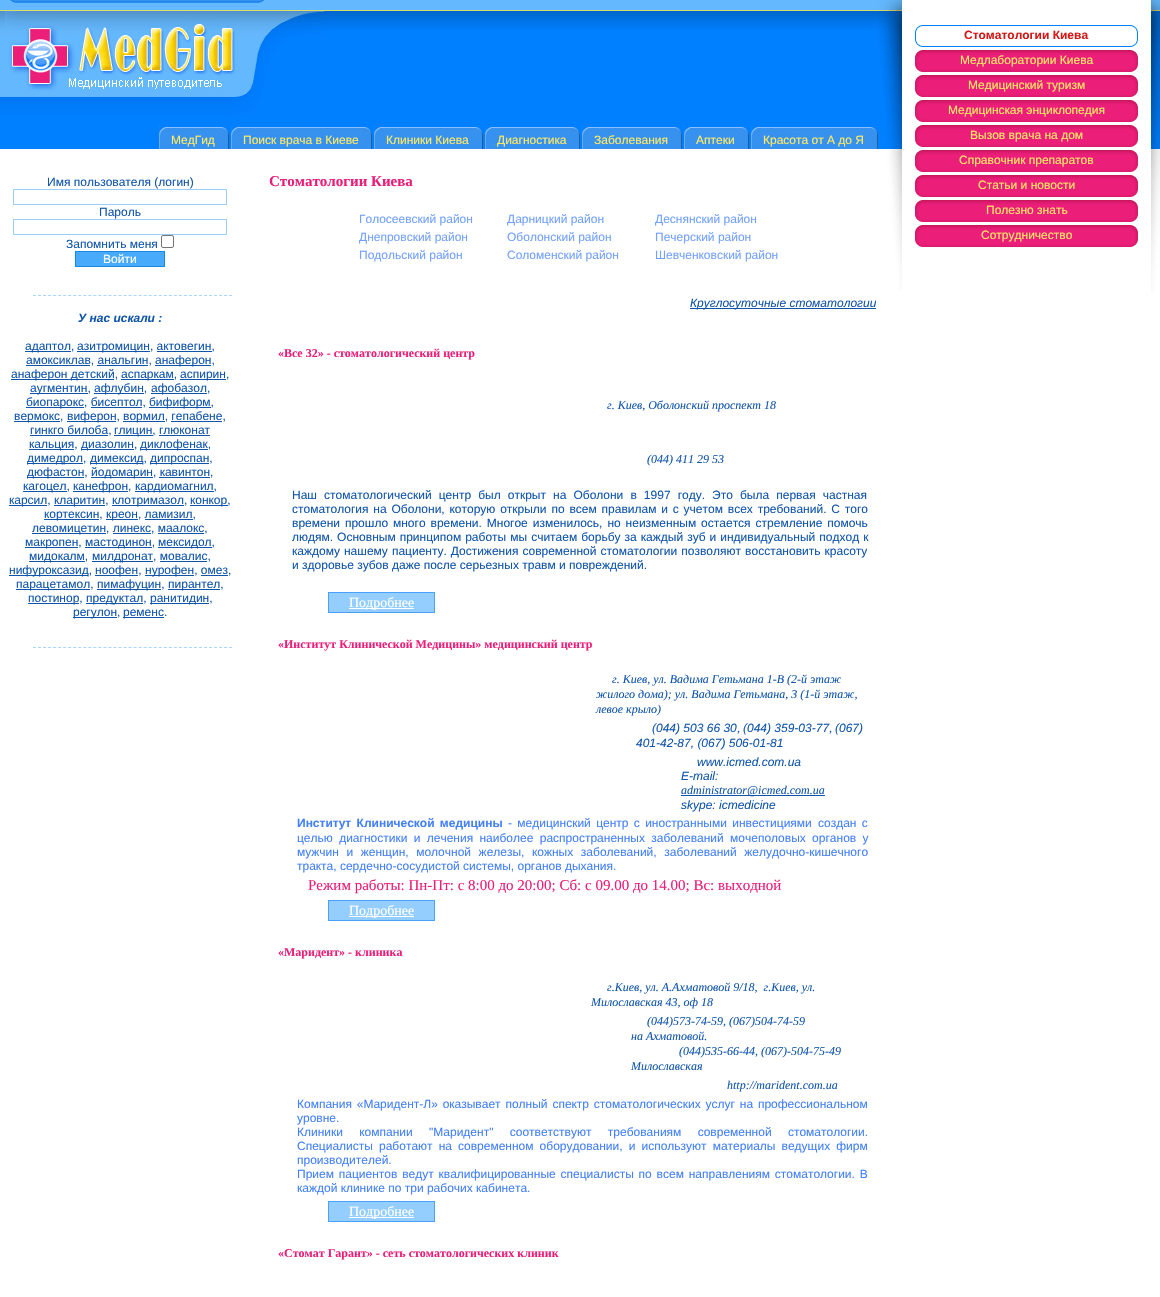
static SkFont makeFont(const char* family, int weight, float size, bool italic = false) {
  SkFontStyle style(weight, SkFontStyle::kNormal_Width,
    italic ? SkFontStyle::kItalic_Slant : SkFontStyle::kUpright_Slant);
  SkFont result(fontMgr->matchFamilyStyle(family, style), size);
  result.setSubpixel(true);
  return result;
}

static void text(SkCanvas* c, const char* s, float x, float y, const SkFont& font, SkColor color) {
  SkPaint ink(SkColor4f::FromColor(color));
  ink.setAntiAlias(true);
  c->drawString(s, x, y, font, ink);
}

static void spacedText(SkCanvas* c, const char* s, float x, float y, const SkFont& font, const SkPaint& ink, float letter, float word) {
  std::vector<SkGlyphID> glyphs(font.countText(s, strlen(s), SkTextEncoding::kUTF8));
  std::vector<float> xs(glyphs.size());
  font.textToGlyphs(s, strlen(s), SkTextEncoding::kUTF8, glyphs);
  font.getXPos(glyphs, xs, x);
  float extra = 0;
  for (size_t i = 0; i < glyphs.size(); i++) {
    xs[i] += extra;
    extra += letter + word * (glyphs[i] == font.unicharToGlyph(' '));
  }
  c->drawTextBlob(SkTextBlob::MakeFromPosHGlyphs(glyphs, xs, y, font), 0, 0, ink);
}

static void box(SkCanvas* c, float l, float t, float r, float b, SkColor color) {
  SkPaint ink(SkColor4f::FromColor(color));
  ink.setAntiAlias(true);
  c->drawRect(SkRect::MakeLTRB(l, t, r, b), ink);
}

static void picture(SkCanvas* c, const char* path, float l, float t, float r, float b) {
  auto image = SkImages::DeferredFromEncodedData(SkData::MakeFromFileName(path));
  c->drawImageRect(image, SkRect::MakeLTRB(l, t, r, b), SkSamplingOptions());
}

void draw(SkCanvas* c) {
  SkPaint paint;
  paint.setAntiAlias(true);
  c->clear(0xffffffff);
  box(c, 0, 126, 751, 149, 0xff0080ff);
  picture(c, "img_01.png", 159, 126, 165, 149);
  picture(c, "img_02.png", 165, 126, 229, 149);
  SkFont face1 = makeFont("Liberation Sans", 400, 12);
  text(c, "МедГид", 171, 144, face1, 0xfffde966);
  picture(c, "img_01.png", 231, 126, 237, 149);
  picture(c, "img_03.png", 237, 126, 372, 149);
  text(c, "Поиск врача в Киеве", 243, 144, face1, 0xfffde966);
  picture(c, "img_01.png", 374, 126, 380, 149);
  picture(c, "img_04.png", 380, 126, 483, 149);
  text(c, "Клиники Киева", 386, 144, face1, 0xfffde966);
  picture(c, "img_01.png", 485, 126, 491, 149);
  picture(c, "img_05.png", 491, 126, 580, 149);
  text(c, "Диагностика", 497, 144, face1, 0xfffde966);
  picture(c, "img_01.png", 582, 126, 588, 149);
  picture(c, "img_06.png", 588, 126, 682, 149);
  text(c, "Заболевания", 594, 144, face1, 0xfffde966);
  picture(c, "img_01.png", 684, 126, 690, 149);
  picture(c, "img_07.png", 690, 126, 749, 149);
  text(c, "Аптеки", 696, 144, face1, 0xfffde966);
  picture(c, "img_01.png", 751, 126, 757, 149);
  picture(c, "img_08.png", 757, 126, 878, 149);
  text(c, "Красота от А до Я", 763, 144, face1, 0xfffde966);
  box(c, 0, 30, 878, 126, 0xff0080ff);
  picture(c, "img_09.png", 0, 0, 878, 30);
  picture(c, "img_10.png", 10, 0, 264, 3);
  picture(c, "img_11.png", 0, 11, 232, 117);
  picture(c, "img_12.png", 232, 11, 329, 117);
  picture(c, "img_13.png", 5, 11, 236, 91);
  picture(c, "img_14.png", 878, 0, 902, 290);
  picture(c, "img_15.png", 915, 25, 1138, 47);
  SkFont face2 = makeFont("Liberation Sans", 700, 12);
  text(c, "Стоматологии Киева", 964, 39, face2, 0xffd41818);
  picture(c, "img_16.png", 915, 50, 1138, 72);
  text(c, "Медлаборатории Киева", 960, 64, face1, 0xfffde966);
  picture(c, "img_16.png", 915, 75, 1138, 97);
  text(c, "Медицинский туризм", 968, 89, face1, 0xfffde966);
  picture(c, "img_16.png", 915, 100, 1138, 122);
  text(c, "Медицинская энциклопедия", 948, 114, face1, 0xfffde966);
  picture(c, "img_16.png", 915, 125, 1138, 147);
  text(c, "Вызов врача на дом", 970, 139, face1, 0xfffde966);
  picture(c, "img_16.png", 915, 150, 1138, 172);
  text(c, "Справочник препаратов", 959, 164, face1, 0xfffde966);
  picture(c, "img_16.png", 915, 175, 1138, 197);
  text(c, "Статьи и новости", 978, 189, face1, 0xfffde966);
  picture(c, "img_16.png", 915, 200, 1138, 222);
  text(c, "Полезно знать", 986, 214, face1, 0xfffde966);
  picture(c, "img_16.png", 915, 225, 1138, 247);
  text(c, "Сотрудничество", 981, 239, face1, 0xfffde966);
  picture(c, "img_17.png", 1151, 0, 1160, 294);
  text(c, "Имя пользователя (логин)", 47, 186, face1, 0xff1155aa);
  paint.setStyle(SkPaint::kStroke_Style);
  paint.setStrokeWidth(1);
  paint.setColor(0xff99ccf6);
  c->drawRect(SkRect::MakeLTRB(13.5f, 189.5f, 226.5f, 204.5f), paint);
  text(c, "Пароль", 99, 216, face1, 0xff1155aa);
  c->drawRect(SkRect::MakeLTRB(13.5f, 219.5f, 226.5f, 234.5f), paint);
  text(c, "Запомнить меня", 66, 248, face1, 0xff1155aa);
  paint.setColor(0xff767676);
  c->drawRoundRect(SkRect::MakeLTRB(161.5f, 235.5f, 173.5f, 247.5f), 1.5f, 1.5f, paint);
  paint.setStyle(SkPaint::kFill_Style);
  paint.setColor(0xff48aafb);
  c->drawRect(SkRect::MakeLTRB(75.5f, 251.5f, 164.5f, 266.5f), paint);
  paint.setStyle(SkPaint::kStroke_Style);
  paint.setColor(0xff1988e3);
  c->drawRect(SkRect::MakeLTRB(75.5f, 251.5f, 164.5f, 266.5f), paint);
  text(c, "Войти", 103, 263, face1, 0xffffffff);
  paint.setColor(0xffa8d6fc);
  paint.setPathEffect(SkDashPathEffect::Make({{3, 2.03f}}, 0));
  c->drawPath(SkPathBuilder().moveTo(33, 295.5f).lineTo(232, 295.5f).detach(), paint);
  paint.setPathEffect(nullptr);
  SkFont face3 = makeFont("Liberation Sans", 700, 12, true);
  text(c, "У нас искали :", 78, 322, face3, 0xff1155aa);
  box(c, 25, 351, 71, 352, 0xff1155aa);
  text(c, "адаптол,", 25, 350, face1, 0xff1155aa);
  box(c, 77, 351, 150, 352, 0xff1155aa);
  text(c, "азитромицин, актовегин,", 77, 350, face1, 0xff1155aa);
  box(c, 157, 351, 212, 352, 0xff1155aa);
  box(c, 26, 365, 90, 366, 0xff1155aa);
  text(c, "амоксиклав, анальгин,", 26, 364, face1, 0xff1155aa);
  box(c, 155, 365, 211, 366, 0xff1155aa);
  text(c, "анаферон,", 155, 364, face1, 0xff1155aa);
  box(c, 97, 365, 148, 366, 0xff1155aa);
  box(c, 11, 379, 114, 380, 0xff1155aa);
  text(c, "анаферон детский,", 11, 378, face1, 0xff1155aa);
  box(c, 121, 379, 174, 380, 0xff1155aa);
  text(c, "аспаркам,", 121, 378, face1, 0xff1155aa);
  box(c, 180, 379, 226, 380, 0xff1155aa);
  text(c, "аспирин,", 180, 378, face1, 0xff1155aa);
  box(c, 30, 393, 88, 394, 0xff1155aa);
  text(c, "аугментин,", 30, 392, face1, 0xff1155aa);
  box(c, 94, 393, 144, 394, 0xff1155aa);
  text(c, "афлубин,", 94, 392, face1, 0xff1155aa);
  box(c, 151, 393, 207, 394, 0xff1155aa);
  text(c, "афобазол,", 151, 392, face1, 0xff1155aa);
  box(c, 26, 407, 84, 408, 0xff1155aa);
  text(c, "биопарокс, бисептол,", 26, 406, face1, 0xff1155aa);
  box(c, 149, 407, 211, 408, 0xff1155aa);
  text(c, "бифиформ,", 149, 406, face1, 0xff1155aa);
  box(c, 91, 407, 142, 408, 0xff1155aa);
  box(c, 14, 421, 60, 422, 0xff1155aa);
  text(c, "вермокс,", 14, 420, face1, 0xff1155aa);
  box(c, 67, 421, 116, 422, 0xff1155aa);
  text(c, "виферон,", 67, 420, face1, 0xff1155aa);
  box(c, 123, 421, 165, 422, 0xff1155aa);
  text(c, "вормил, гепабене,", 123, 420, face1, 0xff1155aa);
  box(c, 171, 421, 222, 422, 0xff1155aa);
  box(c, 30, 435, 108, 436, 0xff1155aa);
  text(c, "гинкго билоба,", 30, 434, face1, 0xff1155aa);
  box(c, 114, 435, 153, 436, 0xff1155aa);
  text(c, "глицин, глюконат", 114, 434, face1, 0xff1155aa);
  box(c, 29, 449, 74, 450, 0xff1155aa);
  text(c, "кальция,", 29, 448, face1, 0xff1155aa);
  box(c, 159, 435, 210, 436, 0xff1155aa);
  box(c, 81, 449, 134, 450, 0xff1155aa);
  text(c, "диазолин,", 81, 448, face1, 0xff1155aa);
  box(c, 140, 449, 208, 450, 0xff1155aa);
  text(c, "диклофенак,", 140, 448, face1, 0xff1155aa);
  box(c, 27, 463, 83, 464, 0xff1155aa);
  text(c, "димедрол,", 27, 462, face1, 0xff1155aa);
  box(c, 90, 463, 143, 464, 0xff1155aa);
  text(c, "димексид,", 90, 462, face1, 0xff1155aa);
  box(c, 150, 463, 209, 464, 0xff1155aa);
  text(c, "дипроспан,", 150, 462, face1, 0xff1155aa);
  box(c, 27, 477, 84, 478, 0xff1155aa);
  text(c, "дюфастон,", 27, 476, face1, 0xff1155aa);
  box(c, 91, 477, 153, 478, 0xff1155aa);
  text(c, "йодомарин, кавинтон,", 91, 476, face1, 0xff1155aa);
  box(c, 159, 477, 210, 478, 0xff1155aa);
  box(c, 23, 491, 67, 492, 0xff1155aa);
  text(c, "кагоцел,", 23, 490, face1, 0xff1155aa);
  box(c, 73, 491, 128, 492, 0xff1155aa);
  text(c, "канефрон,", 73, 490, face1, 0xff1155aa);
  box(c, 135, 491, 214, 492, 0xff1155aa);
  text(c, "кардиомагнил,", 135, 490, face1, 0xff1155aa);
  box(c, 9, 505, 47, 506, 0xff1155aa);
  text(c, "карсил,", 9, 504, face1, 0xff1155aa);
  box(c, 54, 505, 105, 506, 0xff1155aa);
  text(c, "кларитин,", 54, 504, face1, 0xff1155aa);
  box(c, 112, 505, 184, 506, 0xff1155aa);
  text(c, "клотримазол,", 112, 504, face1, 0xff1155aa);
  box(c, 190, 505, 228, 506, 0xff1155aa);
  text(c, "конкор,", 190, 504, face1, 0xff1155aa);
  box(c, 44, 519, 99, 520, 0xff1155aa);
  text(c, "кортексин,", 44, 518, face1, 0xff1155aa);
  box(c, 106, 519, 138, 520, 0xff1155aa);
  text(c, "креон, ламизил,", 106, 518, face1, 0xff1155aa);
  box(c, 145, 519, 193, 520, 0xff1155aa);
  box(c, 32, 533, 106, 534, 0xff1155aa);
  text(c, "левомицетин, линекс, маалокс,", 32, 532, face1, 0xff1155aa);
  box(c, 113, 533, 151, 534, 0xff1155aa);
  box(c, 158, 533, 204, 534, 0xff1155aa);
  box(c, 25, 547, 78, 548, 0xff1155aa);
  text(c, "макропен,", 25, 546, face1, 0xff1155aa);
  box(c, 85, 547, 152, 548, 0xff1155aa);
  text(c, "мастодинон,", 85, 546, face1, 0xff1155aa);
  box(c, 158, 547, 212, 548, 0xff1155aa);
  text(c, "мексидол,", 158, 546, face1, 0xff1155aa);
  box(c, 29, 561, 85, 562, 0xff1155aa);
  text(c, "мидокалм,", 29, 560, face1, 0xff1155aa);
  box(c, 92, 561, 153, 562, 0xff1155aa);
  text(c, "милдронат, мовалис,", 92, 560, face1, 0xff1155aa);
  box(c, 160, 561, 207, 562, 0xff1155aa);
  box(c, 9, 575, 88, 576, 0xff1155aa);
  text(c, "нифуроксазид,", 9, 574, face1, 0xff1155aa);
  box(c, 95, 575, 138, 576, 0xff1155aa);
  text(c, "ноофен,", 95, 574, face1, 0xff1155aa);
  box(c, 145, 575, 194, 576, 0xff1155aa);
  text(c, "нурофен, омез,", 145, 574, face1, 0xff1155aa);
  box(c, 201, 575, 228, 576, 0xff1155aa);
  box(c, 16, 589, 90, 590, 0xff1155aa);
  text(c, "парацетамол,", 16, 588, face1, 0xff1155aa);
  box(c, 97, 589, 161, 590, 0xff1155aa);
  text(c, "пимафуцин,", 97, 588, face1, 0xff1155aa);
  box(c, 168, 589, 220, 590, 0xff1155aa);
  text(c, "пирантел,", 168, 588, face1, 0xff1155aa);
  box(c, 28, 603, 79, 604, 0xff1155aa);
  text(c, "постинор,", 28, 602, face1, 0xff1155aa);
  box(c, 86, 603, 143, 604, 0xff1155aa);
  text(c, "предуктал,", 86, 602, face1, 0xff1155aa);
  box(c, 150, 603, 209, 604, 0xff1155aa);
  text(c, "ранитидин,", 150, 602, face1, 0xff1155aa);
  box(c, 73, 617, 117, 618, 0xff1155aa);
  text(c, "регулон,", 73, 616, face1, 0xff1155aa);
  box(c, 123, 617, 164, 618, 0xff1155aa);
  text(c, "ременс.", 123, 616, face1, 0xff1155aa);
  paint.setPathEffect(SkDashPathEffect::Make({{3, 2.03f}}, 0));
  c->drawPath(SkPathBuilder().moveTo(33, 647.5f).lineTo(232, 647.5f).detach(), paint);
  paint.setPathEffect(nullptr);
  SkFont face4 = makeFont("Liberation Serif", 700, 15);
  text(c, "Стоматологии Киева", 269, 186, face4, 0xffeb1e7a);
  text(c, "Голосеевский район", 359, 223, face1, 0xff73a1fd);
  text(c, "Дарницкий район", 507, 223, face1, 0xff73a1fd);
  text(c, "Деснянский район", 655, 223, face1, 0xff73a1fd);
  text(c, "Днепровский район", 359, 241, face1, 0xff73a1fd);
  text(c, "Оболонский район", 507, 241, face1, 0xff73a1fd);
  text(c, "Печерский район", 655, 241, face1, 0xff73a1fd);
  text(c, "Подольский район", 359, 259, face1, 0xff73a1fd);
  text(c, "Соломенский район", 507, 259, face1, 0xff73a1fd);
  text(c, "Шевченковский район", 655, 259, face1, 0xff73a1fd);
  box(c, 690, 308, 876, 309, 0xff1155aa);
  SkFont face5 = makeFont("Liberation Sans", 400, 12, true);
  text(c, "Круглосуточные стоматологии", 690, 307, face5, 0xff1155aa);
  SkFont face6 = makeFont("Liberation Serif", 700, 12);
  text(c, "«Все 32» - стоматологический центр", 278, 357, face6, 0xffeb1e7a);
  SkFont face7 = makeFont("Liberation Serif", 400, 12, true);
  text(c, "г. Киев, Оболонский проспект 18", 607, 409, face7, 0xff1155aa);
  text(c, "(044) 411 29 53", 647, 463, face7, 0xff1155aa);
  paint.setStyle(SkPaint::kFill_Style);
  paint.setColor(0xff1155aa);
  spacedText(c, "Наш стоматологический центр был открыт на Оболони в 1997 году. Это была первая частная", 292, 499, face1, paint, 0, 3.75f);
  spacedText(c, "стоматология на Оболони, которую открыли по всем правилам и с учетом всех требований. С того", 292, 513, face1, paint, 0, 1.5f);
  spacedText(c, "времени прошло много времени. Многое изменилось, но неизменным остается стремление помочь", 292, 527, face1, paint, 0, 1.6f);
  spacedText(c, "людям. Основным принципом работы мы считаем борьбу за каждый зуб и индивидуальный подход к", 292, 541, face1, paint, 0, 0.7f);
  spacedText(c, "каждому нашему пациенту. Достижения современной стоматологии позволяют восстановить красоту", 292, 555, face1, paint, 0, 0.75f);
  text(c, "и здоровье зубов даже после серьезных травм и повреждений.", 292, 569, face1, 0xff1155aa);
  paint.setColor(0xff93ceff);
  c->drawRect(SkRect::MakeLTRB(328.5f, 592.5f, 434.5f, 612.5f), paint);
  paint.setStyle(SkPaint::kStroke_Style);
  paint.setColor(0xff49a1f9);
  c->drawRect(SkRect::MakeLTRB(328.5f, 592.5f, 434.5f, 612.5f), paint);
  box(c, 349, 608, 414, 609, 0xffffffff);
  SkFont face8 = makeFont("Liberation Serif", 400, 14);
  text(c, "Подробнее", 349, 607, face8, 0xffffffff);
  text(c, "«Институт Клинической Медицины» медицинский центр", 278, 648, face6, 0xffeb1e7a);
  text(c, "г. Киев, ул. Вадима Гетьмана 1-В (2-й этаж", 612, 683, face7, 0xff1155aa);
  text(c, "жилого дома); ул. Вадима Гетьмана, 3 (1-й этаж,", 596, 698, face7, 0xff1155aa);
  text(c, "левое крыло)", 596, 713, face7, 0xff1155aa);
  text(c, "(044) 503 66 30", 652, 732, face5, 0xff1155aa);
  text(c, ",", 737, 732, face7, 0xff1155aa);
  text(c, "(044) 359-03-77", 743, 732, face5, 0xff1155aa);
  text(c, ",", 829, 732, face7, 0xff1155aa);
  text(c, "(067)", 835, 732, face5, 0xff1155aa);
  text(c, "401-42-87, (067) 506-01-81", 636, 747, face5, 0xff1155aa);
  text(c, "www.icmed.com.ua", 697, 766, face5, 0xff1155aa);
  text(c, "E-mail:", 681, 780, face5, 0xff1155aa);
  box(c, 681, 795, 825, 796, 0xff1155aa);
  text(c, "administrator@icmed.com.ua", 681, 794, face7, 0xff1155aa);
  text(c, "skype: icmedicine", 681, 809, face5, 0xff1155aa);
  paint.setStyle(SkPaint::kFill_Style);
  paint.setColor(0xff4380f8);
  spacedText(c, "Институт Клинической медицины", 297, 827, face2, paint, 0, 2);
  spacedText(c, "- медицинский центр с иностранными инвестициями", 508, 827, face1, paint, 0, 2);
  spacedText(c, "создан с", 818, 827, face1, paint, 0, 2);
  spacedText(c, "целью диагностики и лечения наиболее распространенных заболеваний мочеполовых органов у", 297, 842, face1, paint, 0, 3);
  spacedText(c, "мужчин и женщин, молочной железы, кожных заболеваний, заболеваний желудочно-кишечного", 297, 856, face1, paint, 0, 4.25f);
  text(c, "тракта, сердечно-сосудистой системы, органов дыхания.", 297, 870, face1, 0xff4380f8);
  SkFont face9 = makeFont("Liberation Serif", 400, 15);
  text(c, "Режим работы: Пн-Пт: с 8:00 до 20:00; Сб: с 09.00 до 14.00; Вс: выходной", 308, 890, face9, 0xffeb1e7a);
  paint.setColor(0xff93ceff);
  c->drawRect(SkRect::MakeLTRB(328.5f, 900.5f, 434.5f, 920.5f), paint);
  paint.setStyle(SkPaint::kStroke_Style);
  paint.setColor(0xff49a1f9);
  c->drawRect(SkRect::MakeLTRB(328.5f, 900.5f, 434.5f, 920.5f), paint);
  box(c, 349, 916, 414, 917, 0xffffffff);
  text(c, "Подробнее", 349, 915, face8, 0xffffffff);
  text(c, "«Маридент» - клиника", 278, 956, face6, 0xffeb1e7a);
  text(c, "г.Киев, ул. А.Ахматовой 9/18,  г.Киев, ул.", 607, 991, face7, 0xff1155aa);
  text(c, "Милославская 43, оф 18", 591, 1006, face7, 0xff1155aa);
  text(c, "(044)573-74-59, (067)504-74-59", 647, 1025, face7, 0xff1155aa);
  text(c, "на Ахматовой.", 631, 1040, face7, 0xff1155aa);
  text(c, "(044)535-66-44, (067)-504-75-49", 679, 1055, face7, 0xff1155aa);
  text(c, "Милославская", 631, 1070, face7, 0xff1155aa);
  text(c, "http://marident.com.ua", 727, 1089, face7, 0xff1155aa);
  paint.setStyle(SkPaint::kFill_Style);
  paint.setColor(0xff4380f8);
  spacedText(c, "Компания «Маридент-Л» оказывает полный спектр стоматологических услуг на профессиональном", 297, 1108, face1, paint, 0, 1.5f);
  text(c, "уровне.", 297, 1122, face1, 0xff4380f8);
  spacedText(c, "Клиники компании \"Маридент\" соответствуют требованиям современной стоматологии.", 297, 1136, face1, paint, 0, 13);
  spacedText(c, "Специалисты работают на современном оборудовании, и используют материалы ведущих фирм", 297, 1150, face1, paint, 0, 2.75f);
  text(c, "производителей.", 297, 1164, face1, 0xff4380f8);
  spacedText(c, "Прием пациентов ведут квалифицированные специалисты по всем направлениям стоматологии. В", 297, 1178, face1, paint, 0, 1.5f);
  text(c, "каждой клинике по три рабочих кабинета.", 297, 1192, face1, 0xff4380f8);
  paint.setColor(0xff93ceff);
  c->drawRect(SkRect::MakeLTRB(328.5f, 1201.5f, 434.5f, 1221.5f), paint);
  paint.setStyle(SkPaint::kStroke_Style);
  paint.setColor(0xff49a1f9);
  c->drawRect(SkRect::MakeLTRB(328.5f, 1201.5f, 434.5f, 1221.5f), paint);
  box(c, 349, 1217, 414, 1218, 0xffffffff);
  text(c, "Подробнее", 349, 1216, face8, 0xffffffff);
  text(c, "«Стомат Гарант» - сеть стоматологических клиник", 278, 1257, face6, 0xffeb1e7a);
}
